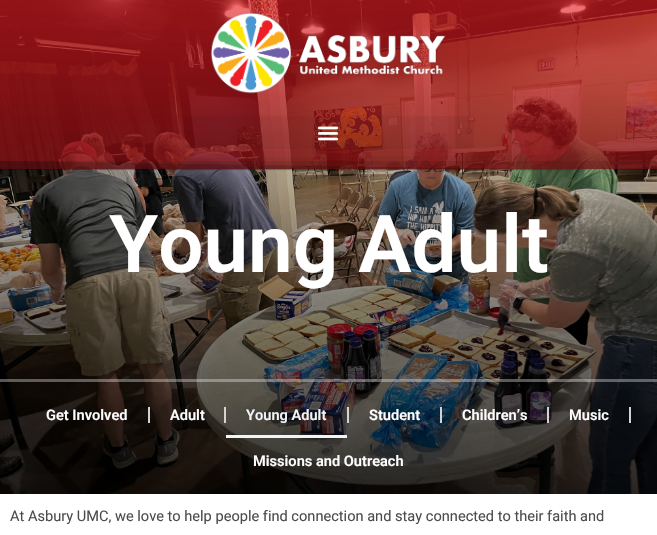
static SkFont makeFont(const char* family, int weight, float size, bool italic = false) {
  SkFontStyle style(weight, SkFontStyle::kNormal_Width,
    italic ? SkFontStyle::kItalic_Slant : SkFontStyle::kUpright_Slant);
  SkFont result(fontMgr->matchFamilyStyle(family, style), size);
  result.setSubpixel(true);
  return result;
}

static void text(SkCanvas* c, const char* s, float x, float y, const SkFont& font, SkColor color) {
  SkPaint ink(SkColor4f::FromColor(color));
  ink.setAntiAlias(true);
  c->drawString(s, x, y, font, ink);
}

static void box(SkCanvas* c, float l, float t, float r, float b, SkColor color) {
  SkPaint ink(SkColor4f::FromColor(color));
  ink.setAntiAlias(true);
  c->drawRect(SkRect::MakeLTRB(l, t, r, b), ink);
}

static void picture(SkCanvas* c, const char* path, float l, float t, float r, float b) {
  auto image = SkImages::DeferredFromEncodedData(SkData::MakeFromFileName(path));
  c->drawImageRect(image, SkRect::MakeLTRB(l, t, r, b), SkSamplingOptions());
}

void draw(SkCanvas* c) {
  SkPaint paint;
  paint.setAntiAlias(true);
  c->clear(0xffffffff);
  picture(c, "img_01.png", 0, 0, 657, 494);
  picture(c, "img_02.png", 210, 12, 446, 94);
  box(c, 183, 116, 474, 149, 0x0d000000);
  picture(c, "img_03.png", 317, 126, 339, 141);
  c->save();
  c->clipRect(SkRect::MakeLTRB(0, 152, 657, 170));
  paint.setColor(0x2e000000);
  c->drawPath(SkPathBuilder().moveTo(657, 171).lineTo(-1, 171).lineTo(-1, 161).close().detach(), paint);
  c->restore();
  box(c, 0, 161, 657, 170, 0x17000000);
  paint.setColor(0x0a000000);
  c->drawPath(SkPathBuilder().moveTo(-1, 171).lineTo(657, 171).lineTo(657, 153).lineTo(-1, 161).close().detach(), paint);
  SkFont face1 = makeFont("Roboto", 600, 80);
  text(c, "Young Adult", 109, 272, face1, 0xffffffff);
  box(c, 0, 379, 657, 382, 0x57fdfdfd);
  SkFont face2 = makeFont("Roboto", 600, 14.6f);
  text(c, "Get Involved", 46, 420, face2, 0xffffffff);
  box(c, 148, 407, 150, 423, 0xffd3d3d3);
  text(c, "Adult", 170, 420, face2, 0xffffffff);
  box(c, 224, 407, 226, 423, 0xffd3d3d3);
  text(c, "Young Adult", 246, 420, face2, 0xfff0f5fa);
  box(c, 226, 435, 347, 438, 0xfff0f5fa);
  box(c, 347, 407, 349, 423, 0xffd3d3d3);
  text(c, "Student", 369, 420, face2, 0xffffffff);
  box(c, 440, 407, 442, 423, 0xffd3d3d3);
  text(c, "Children’s", 462, 420, face2, 0xffffffff);
  box(c, 547, 407, 549, 423, 0xffd3d3d3);
  text(c, "Music", 569, 420, face2, 0xffffffff);
  box(c, 629, 407, 631, 423, 0xffd3d3d3);
  text(c, "Missions and Outreach", 253, 466, face2, 0xffffffff);
  SkFont face3 = makeFont("Roboto", 400, 14.6f);
  text(c, "At Asbury UMC, we love to help people find connection and stay connected to their faith and", 10, 521, face3, 0xff4c4c4c);
}
